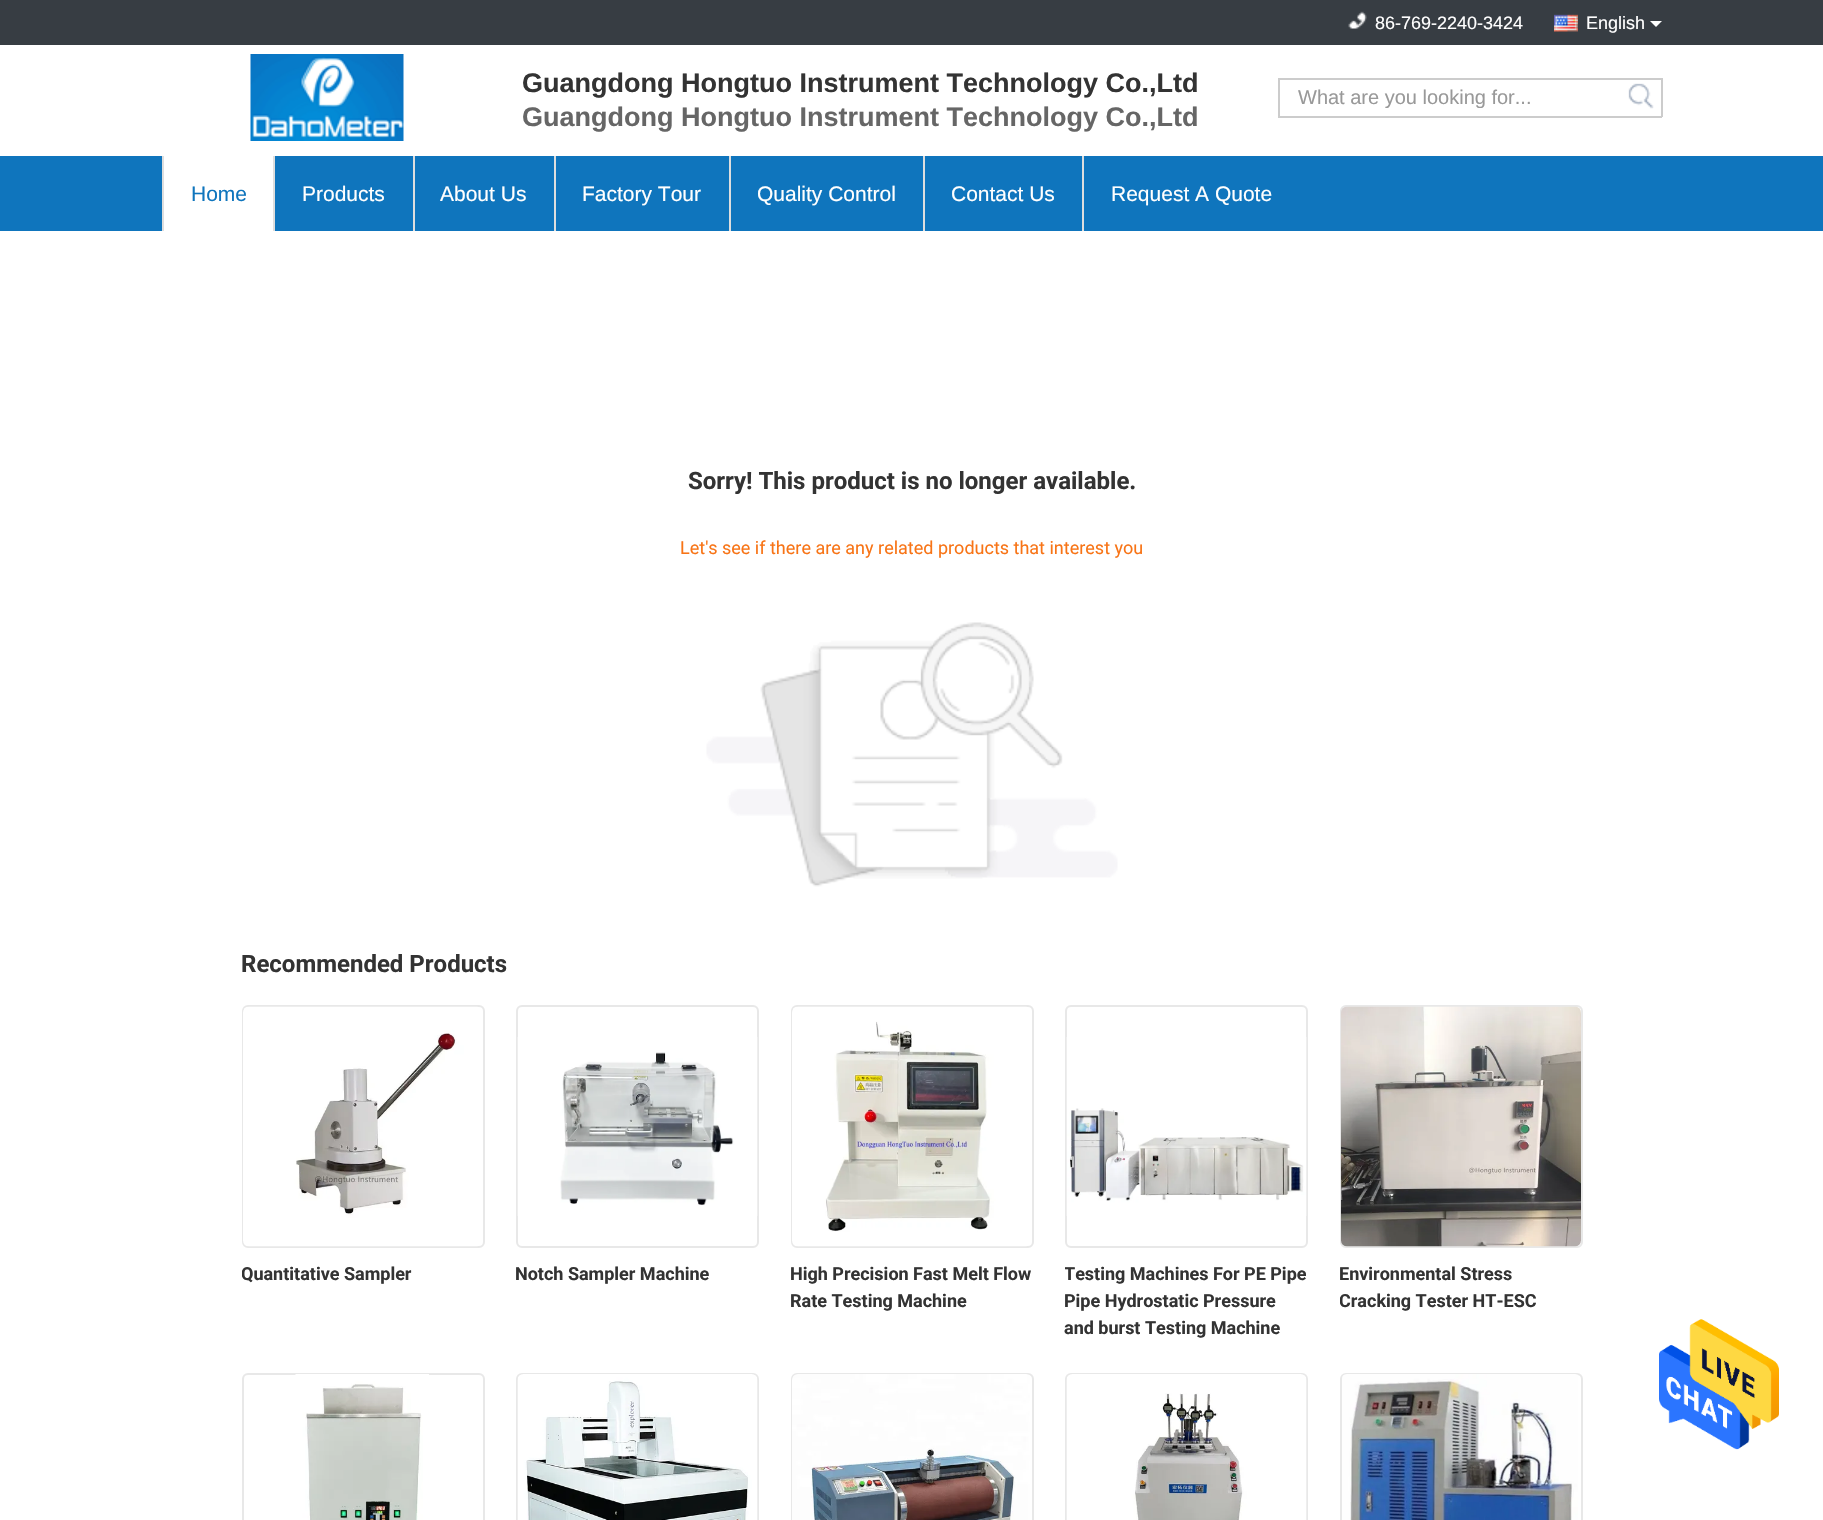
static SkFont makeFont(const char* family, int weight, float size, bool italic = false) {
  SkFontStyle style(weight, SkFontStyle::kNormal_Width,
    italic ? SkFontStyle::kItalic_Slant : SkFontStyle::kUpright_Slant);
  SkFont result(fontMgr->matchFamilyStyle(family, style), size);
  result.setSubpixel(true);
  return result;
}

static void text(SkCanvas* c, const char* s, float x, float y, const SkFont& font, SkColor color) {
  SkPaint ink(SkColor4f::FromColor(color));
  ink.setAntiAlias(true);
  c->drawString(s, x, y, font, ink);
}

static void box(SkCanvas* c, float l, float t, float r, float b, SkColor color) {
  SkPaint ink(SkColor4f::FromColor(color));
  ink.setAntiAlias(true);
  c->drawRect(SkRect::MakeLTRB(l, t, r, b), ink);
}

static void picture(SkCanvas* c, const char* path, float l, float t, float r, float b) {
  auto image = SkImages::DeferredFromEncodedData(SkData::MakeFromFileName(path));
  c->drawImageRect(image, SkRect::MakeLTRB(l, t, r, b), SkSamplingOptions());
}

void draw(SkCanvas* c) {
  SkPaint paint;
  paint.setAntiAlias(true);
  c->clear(0xffffffff);
  box(c, 0, 0, 1823, 45, 0xff373d43);
  picture(c, "img_01.png", 1348, 11, 1367, 29);
  SkFont face1 = makeFont("Liberation Sans", 400, 18);
  text(c, "86-769-2240-3424", 1375, 29, face1, 0xffffffff);
  picture(c, "img_02.png", 1554, 14, 1578, 32);
  text(c, "English", 1586, 29, face1, 0xffffffff);
  paint.setColor(0xffffffff);
  c->drawPath(SkPathBuilder().moveTo(1650, 21).lineTo(1662, 21).lineTo(1656, 27).close().detach(), paint);
  picture(c, "img_03.png", 250, 54, 404, 141);
  SkFont face2 = makeFont("Liberation Sans", 700, 27);
  text(c, "Guangdong Hongtuo Instrument Technology Co.,Ltd", 522, 92, face2, 0xff333333);
  text(c, "Guangdong Hongtuo Instrument Technology Co.,Ltd", 522, 126, face2, 0xff666666);
  box(c, 1278, 78, 1662, 80, 0xffcccccc);
  box(c, 1278, 116, 1625, 118, 0xffcccccc);
  box(c, 1278, 78, 1280, 117, 0xffcccccc);
  c->save();
  c->clipRect(SkRect::MakeLTRB(1287, 86, 1617, 108));
  SkFont face3 = makeFont("Liberation Sans", 400, 20);
  text(c, "What are you looking for...", 1298, 104, face3, 0xff999999);
  c->restore();
  picture(c, "img_04.png", 1628, 83, 1654, 109);
  box(c, 1661, 78, 1663, 117, 0xffcccccc);
  box(c, 1625, 116, 1662, 118, 0xffcccccc);
  box(c, 0, 156, 1823, 231, 0xff0f75bd);
  box(c, 164, 156, 273, 231, 0xffffffff);
  box(c, 162, 156, 164, 231, 0xffdedede);
  SkFont face4 = makeFont("Liberation Sans", 400, 21);
  text(c, "Home", 191, 201, face4, 0xff0f75bd);
  box(c, 273, 156, 275, 231, 0xffdedede);
  text(c, "Products", 302, 201, face4, 0xffffffff);
  box(c, 413, 156, 415, 231, 0xffdedede);
  text(c, "About Us", 440, 201, face4, 0xffffffff);
  box(c, 554, 156, 556, 231, 0xffdedede);
  text(c, "Factory Tour", 582, 201, face4, 0xffffffff);
  box(c, 729, 156, 731, 231, 0xffdedede);
  text(c, "Quality Control", 757, 201, face4, 0xffffffff);
  box(c, 923, 156, 925, 231, 0xffdedede);
  text(c, "Contact Us", 951, 201, face4, 0xffffffff);
  box(c, 1082, 156, 1084, 231, 0xffdedede);
  text(c, "Request A Quote", 1111, 201, face4, 0xffffffff);
  SkFont face5 = makeFont("Roboto", 700, 24);
  text(c, "Sorry! This product is no longer available.", 688, 489, face5, 0xff333333);
  SkFont face6 = makeFont("Roboto", 400, 18);
  text(c, "Let's see if there are any related products that interest you", 680, 554, face6, 0xfff87416);
  picture(c, "img_05.png", 706, 622, 1118, 887);
  text(c, "Recommended Products", 241, 972, face5, 0xff333333);
  paint.setStyle(SkPaint::kStroke_Style);
  paint.setStrokeWidth(2);
  paint.setColor(0xffe8e8e8);
  c->drawRoundRect(SkRect::MakeLTRB(243, 1006, 484, 1247), 5, 5, paint);
  picture(c, "img_06.png", 243, 1006, 478, 1247);
  c->save();
  c->clipRect(SkRect::MakeLTRB(242, 1260, 485, 1287));
  SkFont face7 = makeFont("Roboto", 700, 18);
  text(c, "Quantitative Sampler", 241, 1280, face7, 0xff333333);
  c->restore();
  c->drawRoundRect(SkRect::MakeLTRB(517, 1006, 758, 1247), 5, 5, paint);
  picture(c, "img_07.png", 517, 1037, 758, 1216);
  text(c, "Notch Sampler Machine", 515, 1280, face7, 0xff333333);
  c->drawRoundRect(SkRect::MakeLTRB(792, 1006, 1033, 1247), 5, 5, paint);
  picture(c, "img_08.png", 792, 1006, 1027, 1247);
  c->save();
  c->clipRect(SkRect::MakeLTRB(791, 1260, 1034, 1314));
  text(c, "High Precision Fast Melt Flow", 790, 1280, face7, 0xff333333);
  text(c, "Rate Testing Machine", 790, 1307, face7, 0xff333333);
  c->restore();
  c->drawRoundRect(SkRect::MakeLTRB(1066, 1006, 1307, 1247), 5, 5, paint);
  picture(c, "img_09.png", 1066, 1037, 1307, 1216);
  c->save();
  c->clipRect(SkRect::MakeLTRB(1065, 1260, 1308, 1341));
  text(c, "Testing Machines For PE Pipe", 1064, 1280, face7, 0xff333333);
  c->restore();
  text(c, "Pipe Hydrostatic Pressure", 1064, 1307, face7, 0xff333333);
  text(c, "and burst Testing Machine", 1064, 1334, face7, 0xff333333);
  c->drawRoundRect(SkRect::MakeLTRB(1341, 1006, 1582, 1247), 5, 5, paint);
  picture(c, "img_10.png", 1341, 1006, 1581, 1247);
  c->save();
  c->clipRect(SkRect::MakeLTRB(1340, 1260, 1583, 1314));
  text(c, "Environmental Stress", 1339, 1280, face7, 0xff333333);
  text(c, "Cracking Tester HT-ESC", 1339, 1307, face7, 0xff333333);
  c->restore();
  c->drawRoundRect(SkRect::MakeLTRB(243, 1374, 484, 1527), 5, 5, paint);
  picture(c, "img_11.png", 295, 1374, 429, 1520);
  c->drawRoundRect(SkRect::MakeLTRB(517, 1374, 758, 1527), 5, 5, paint);
  picture(c, "img_12.png", 517, 1374, 758, 1520);
  c->drawRoundRect(SkRect::MakeLTRB(792, 1374, 1033, 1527), 5, 5, paint);
  picture(c, "img_13.png", 792, 1374, 1030, 1520);
  c->drawRoundRect(SkRect::MakeLTRB(1066, 1374, 1307, 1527), 5, 5, paint);
  picture(c, "img_14.png", 1066, 1374, 1307, 1520);
  c->drawRoundRect(SkRect::MakeLTRB(1341, 1374, 1582, 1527), 5, 5, paint);
  picture(c, "img_15.png", 1342, 1374, 1578, 1520);
  picture(c, "img_16.png", 1659, 1319, 1779, 1450);
}
